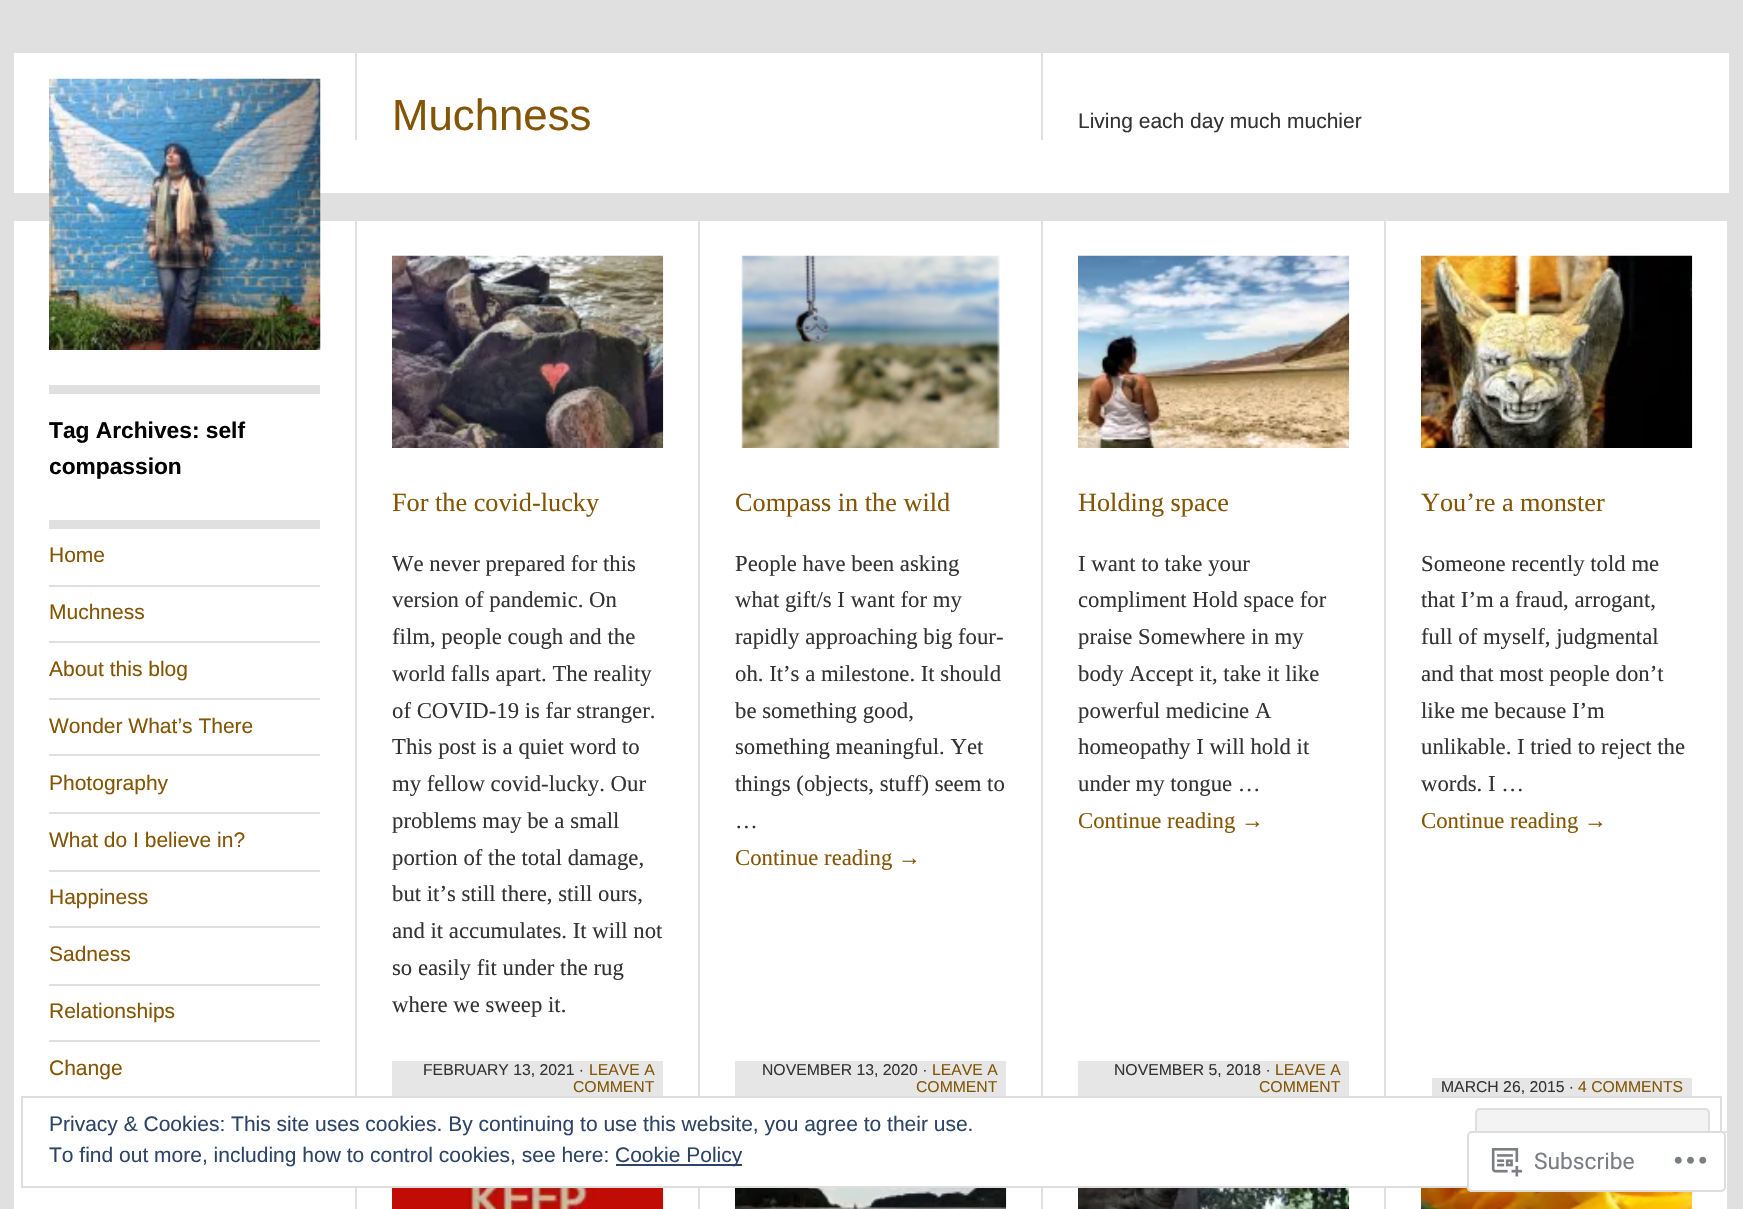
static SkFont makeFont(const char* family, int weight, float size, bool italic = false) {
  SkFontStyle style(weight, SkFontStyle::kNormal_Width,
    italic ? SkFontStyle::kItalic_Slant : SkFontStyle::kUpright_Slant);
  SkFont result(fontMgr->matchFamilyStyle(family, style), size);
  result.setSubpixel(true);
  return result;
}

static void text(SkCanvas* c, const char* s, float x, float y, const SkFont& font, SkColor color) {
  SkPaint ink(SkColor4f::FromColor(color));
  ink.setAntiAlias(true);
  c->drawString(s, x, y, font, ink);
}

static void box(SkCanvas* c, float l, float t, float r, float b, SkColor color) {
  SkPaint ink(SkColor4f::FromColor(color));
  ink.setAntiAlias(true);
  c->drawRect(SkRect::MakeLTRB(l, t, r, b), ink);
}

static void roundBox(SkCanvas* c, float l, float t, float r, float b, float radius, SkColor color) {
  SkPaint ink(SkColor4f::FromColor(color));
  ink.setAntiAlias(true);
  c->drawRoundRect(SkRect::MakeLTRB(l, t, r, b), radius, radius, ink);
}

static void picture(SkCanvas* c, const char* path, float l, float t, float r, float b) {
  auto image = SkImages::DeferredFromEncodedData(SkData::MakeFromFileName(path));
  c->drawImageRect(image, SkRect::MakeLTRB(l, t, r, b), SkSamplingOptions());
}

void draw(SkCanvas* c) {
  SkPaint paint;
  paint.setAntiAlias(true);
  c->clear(0xffe0e0e0);
  box(c, 14, 53, 1729, 193, 0xffffffff);
  box(c, 14, 221, 1727, 1209, 0xffffffff);
  picture(c, "img_01.png", 49, 78, 321, 350);
  box(c, 355, 53, 357, 140, 0xffe0e0e0);
  SkFont face1 = makeFont("Liberation Sans", 400, 43.75f);
  text(c, "Muchness", 392, 130, face1, 0xff835504);
  box(c, 1041, 53, 1043, 140, 0xffe0e0e0);
  SkFont face2 = makeFont("Liberation Sans", 400, 21);
  text(c, "Living each day much muchier", 1078, 128, face2, 0xff333333);
  box(c, 355, 219, 357, 1209, 0xffe0e0e0);
  box(c, 49, 385, 320, 394, 0xffe0e0e0);
  SkFont face3 = makeFont("Liberation Sans", 700, 22.75f);
  text(c, "Tag Archives: self", 49, 438, face3, 0xff000000);
  text(c, "compassion", 49, 474, face3, 0xff000000);
  box(c, 49, 520, 320, 529, 0xffe0e0e0);
  box(c, 49, 585, 320, 587, 0xffe0e0e0);
  text(c, "Home", 49, 562, face2, 0xff835504);
  box(c, 49, 641, 320, 643, 0xffe0e0e0);
  text(c, "Muchness", 49, 619, face2, 0xff835504);
  box(c, 49, 698, 320, 700, 0xffe0e0e0);
  text(c, "About this blog", 49, 676, face2, 0xff835504);
  box(c, 49, 754, 320, 756, 0xffe0e0e0);
  text(c, "Wonder What’s There", 49, 733, face2, 0xff835504);
  box(c, 49, 812, 320, 814, 0xffe0e0e0);
  text(c, "Photography", 49, 790, face2, 0xff835504);
  box(c, 49, 870, 320, 872, 0xffe0e0e0);
  text(c, "What do I believe in?", 49, 847, face2, 0xff835504);
  box(c, 49, 926, 320, 928, 0xffe0e0e0);
  text(c, "Happiness", 49, 904, face2, 0xff835504);
  box(c, 49, 984, 320, 986, 0xffe0e0e0);
  text(c, "Sadness", 49, 961, face2, 0xff835504);
  box(c, 49, 1040, 320, 1042, 0xffe0e0e0);
  text(c, "Relationships", 49, 1018, face2, 0xff835504);
  text(c, "Change", 49, 1075, face2, 0xff835504);
  box(c, 698, 219, 700, 1096, 0xffe0e0e0);
  picture(c, "img_02.png", 392, 255, 664, 448);
  SkFont face4 = makeFont("Liberation Serif", 400, 26.25f);
  text(c, "For the covid-lucky", 392, 511, face4, 0xff835504);
  SkFont face5 = makeFont("Liberation Serif", 400, 22.75f);
  text(c, "We never prepared for this", 392, 571, face5, 0xff333333);
  text(c, "version of pandemic. On", 392, 607, face5, 0xff333333);
  text(c, "film, people cough and the", 392, 644, face5, 0xff333333);
  text(c, "world falls apart. The reality", 392, 681, face5, 0xff333333);
  text(c, "of COVID-19 is far stranger.", 392, 718, face5, 0xff333333);
  text(c, "This post is a quiet word to", 392, 754, face5, 0xff333333);
  text(c, "my fellow covid-lucky. Our", 392, 791, face5, 0xff333333);
  text(c, "problems may be a small", 392, 828, face5, 0xff333333);
  text(c, "portion of the total damage,", 392, 865, face5, 0xff333333);
  text(c, "but it’s still there, still ours,", 392, 901, face5, 0xff333333);
  text(c, "and it accumulates. It will not", 392, 938, face5, 0xff333333);
  text(c, "so easily fit under the rug", 392, 975, face5, 0xff333333);
  text(c, "where we sweep it.", 392, 1012, face5, 0xff333333);
  box(c, 392, 1061, 663, 1096, 0xffe6e6e6);
  SkFont face6 = makeFont("Liberation Sans", 400, 15.75f);
  text(c, "FEBRUARY 13, 2021 ·", 423, 1075, face6, 0xff333333);
  text(c, "LEAVE A", 589, 1075, face6, 0xff835504);
  text(c, "COMMENT", 573, 1092, face6, 0xff835504);
  box(c, 1041, 219, 1043, 1096, 0xffe0e0e0);
  picture(c, "img_03.png", 741, 255, 1000, 448);
  text(c, "Compass in the wild", 735, 511, face4, 0xff835504);
  text(c, "People have been asking", 735, 571, face5, 0xff333333);
  text(c, "what gift/s I want for my", 735, 607, face5, 0xff333333);
  text(c, "rapidly approaching big four-", 735, 644, face5, 0xff333333);
  text(c, "oh. It’s a milestone. It should", 735, 681, face5, 0xff333333);
  text(c, "be something good,", 735, 718, face5, 0xff333333);
  text(c, "something meaningful. Yet", 735, 754, face5, 0xff333333);
  text(c, "things (objects, stuff) seem to", 735, 791, face5, 0xff333333);
  text(c, "…", 735, 828, face5, 0xff333333);
  text(c, "Continue reading →", 735, 865, face5, 0xff835504);
  box(c, 735, 1061, 1006, 1096, 0xffe6e6e6);
  text(c, "NOVEMBER 13, 2020 ·", 762, 1075, face6, 0xff333333);
  text(c, "LEAVE A", 932, 1075, face6, 0xff835504);
  text(c, "COMMENT", 916, 1092, face6, 0xff835504);
  box(c, 1384, 219, 1386, 1096, 0xffe0e0e0);
  picture(c, "img_04.png", 1078, 255, 1350, 448);
  text(c, "Holding space", 1078, 511, face4, 0xff835504);
  text(c, "I want to take your", 1078, 571, face5, 0xff333333);
  text(c, "compliment Hold space for", 1078, 607, face5, 0xff333333);
  text(c, "praise Somewhere in my", 1078, 644, face5, 0xff333333);
  text(c, "body Accept it, take it like", 1078, 681, face5, 0xff333333);
  text(c, "powerful medicine A", 1078, 718, face5, 0xff333333);
  text(c, "homeopathy I will hold it", 1078, 754, face5, 0xff333333);
  text(c, "under my tongue …", 1078, 791, face5, 0xff333333);
  text(c, "Continue reading →", 1078, 828, face5, 0xff835504);
  box(c, 1078, 1061, 1349, 1096, 0xffe6e6e6);
  text(c, "NOVEMBER 5, 2018 ·", 1114, 1075, face6, 0xff333333);
  text(c, "LEAVE A", 1275, 1075, face6, 0xff835504);
  text(c, "COMMENT", 1259, 1092, face6, 0xff835504);
  picture(c, "img_05.png", 1421, 255, 1693, 448);
  text(c, "You’re a monster", 1421, 511, face4, 0xff835504);
  text(c, "Someone recently told me", 1421, 571, face5, 0xff333333);
  text(c, "that I’m a fraud, arrogant,", 1421, 607, face5, 0xff333333);
  text(c, "full of myself, judgmental", 1421, 644, face5, 0xff333333);
  text(c, "and that most people don’t", 1421, 681, face5, 0xff333333);
  text(c, "like me because I’m", 1421, 718, face5, 0xff333333);
  text(c, "unlikable. I tried to reject the", 1421, 754, face5, 0xff333333);
  text(c, "words. I …", 1421, 791, face5, 0xff333333);
  text(c, "Continue reading →", 1421, 828, face5, 0xff835504);
  box(c, 1432, 1078, 1692, 1096, 0xffe6e6e6);
  text(c, "MARCH 26, 2015 ·", 1441, 1092, face6, 0xff333333);
  text(c, "4 COMMENTS", 1578, 1092, face6, 0xff835504);
  box(c, 698, 1188, 700, 1209, 0xffe0e0e0);
  picture(c, "img_06.png", 392, 1188, 664, 1209);
  box(c, 1041, 1188, 1043, 1209, 0xffe0e0e0);
  picture(c, "img_07.png", 735, 1188, 1007, 1209);
  box(c, 1384, 1188, 1386, 1209, 0xffe0e0e0);
  picture(c, "img_08.png", 1078, 1188, 1350, 1209);
  box(c, 1722, 1131, 1729, 1133, 0xffe0e0e0);
  picture(c, "img_09.png", 1421, 1188, 1693, 1209);
  box(c, 355, 1098, 357, 1186, 0xffffffff);
  paint.setStyle(SkPaint::kStroke_Style);
  paint.setStrokeWidth(2);
  paint.setColor(0xffdedede);
  c->drawRect(SkRect::MakeLTRB(22, 1097, 1721, 1187), paint);
  text(c, "Privacy & Cookies: This site uses cookies. By continuing to use this website, you agree to their use.", 49, 1131, face2, 0xff2e4467);
  paint.setStyle(SkPaint::kFill_Style);
  paint.setColor(0xfff3f3f3);
  c->drawRoundRect(SkRect::MakeLTRB(1476, 1109, 1709, 1175), 4, 4, paint);
  paint.setStyle(SkPaint::kStroke_Style);
  paint.setColor(0xffdedede);
  c->drawRoundRect(SkRect::MakeLTRB(1476, 1109, 1709, 1175), 4, 4, paint);
  text(c, "To find out more, including how to control cookies, see here:", 49, 1162, face2, 0xff2e4467);
  box(c, 616, 1164, 742, 1166, 0xff2e4467);
  text(c, "Cookie Policy", 615, 1162, face2, 0xff2e4467);
  roundBox(c, 1467, 1131, 1726, 1192, 5, 0xfaffffff);
  paint.setColor(0xfadcdcde);
  c->drawRoundRect(SkRect::MakeLTRB(1468, 1132, 1725, 1191), 4, 4, paint);
  picture(c, "img_10.png", 1491, 1148, 1523, 1177);
  SkFont face7 = makeFont("Roboto", 400, 22.75f);
  text(c, "Subscribe", 1534, 1169, face7, 0xff7a7e84);
  picture(c, "img_11.png", 1674, 1156, 1707, 1164);
}
